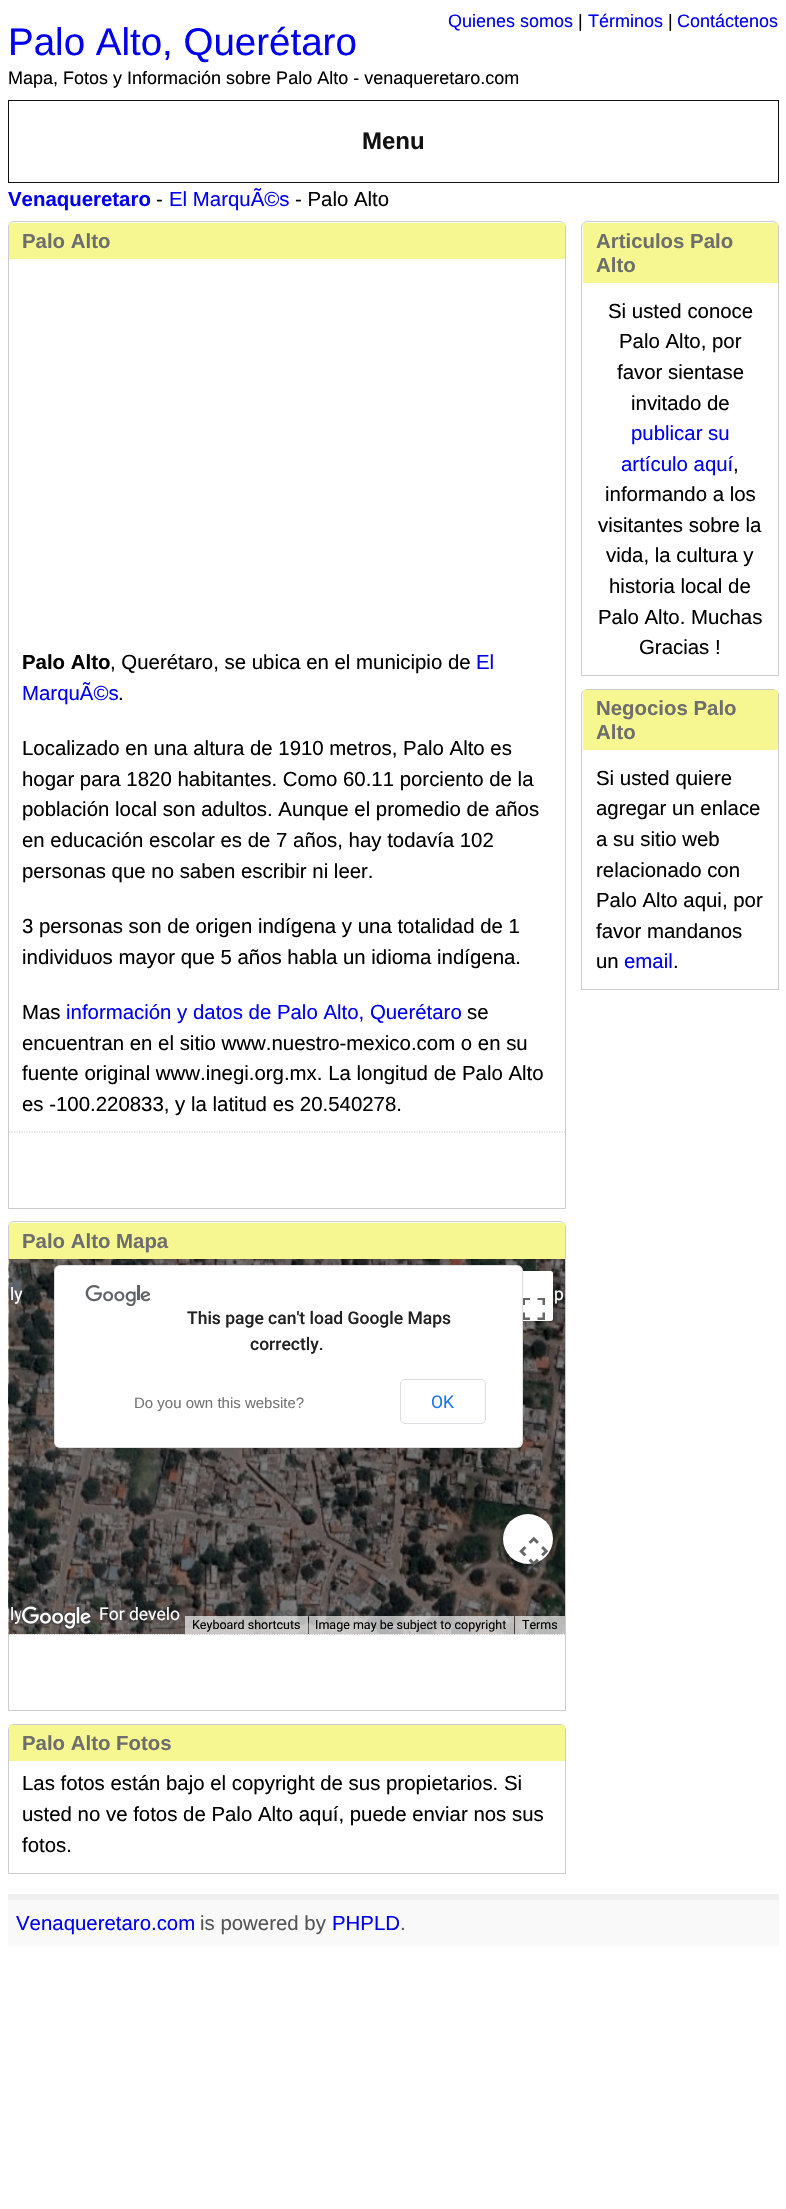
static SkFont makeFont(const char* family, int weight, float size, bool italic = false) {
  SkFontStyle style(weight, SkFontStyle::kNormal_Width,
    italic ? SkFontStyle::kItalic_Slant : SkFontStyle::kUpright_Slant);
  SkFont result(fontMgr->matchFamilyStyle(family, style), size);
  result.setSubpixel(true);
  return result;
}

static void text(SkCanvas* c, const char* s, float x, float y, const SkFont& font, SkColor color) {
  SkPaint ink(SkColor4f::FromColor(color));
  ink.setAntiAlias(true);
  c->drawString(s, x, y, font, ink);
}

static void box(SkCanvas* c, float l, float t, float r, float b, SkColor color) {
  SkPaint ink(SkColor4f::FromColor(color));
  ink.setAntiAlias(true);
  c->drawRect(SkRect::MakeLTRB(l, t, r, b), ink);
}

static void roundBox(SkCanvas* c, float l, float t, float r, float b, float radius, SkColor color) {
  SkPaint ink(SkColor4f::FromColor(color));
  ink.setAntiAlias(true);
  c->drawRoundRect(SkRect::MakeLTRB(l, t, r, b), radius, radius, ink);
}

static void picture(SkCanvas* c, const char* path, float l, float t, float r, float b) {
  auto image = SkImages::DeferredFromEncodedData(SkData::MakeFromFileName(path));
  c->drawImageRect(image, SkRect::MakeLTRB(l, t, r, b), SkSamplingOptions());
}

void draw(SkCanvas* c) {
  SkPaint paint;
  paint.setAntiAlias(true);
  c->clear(0xffffffff);
  SkFont face1 = makeFont("Liberation Sans", 400, 18);
  text(c, "Quienes somos", 448, 27, face1, 0xff0000ee);
  text(c, "|", 578, 27, face1, 0xff000000);
  text(c, "Términos", 588, 27, face1, 0xff0000ee);
  text(c, "|", 668, 27, face1, 0xff000000);
  text(c, "Contáctenos", 677, 27, face1, 0xff0000ee);
  SkFont face2 = makeFont("Liberation Sans", 400, 38.5f);
  text(c, "Palo Alto, Querétaro", 8, 55, face2, 0xff0000ee);
  text(c, "Mapa, Fotos y Información sobre Palo Alto - venaqueretaro.com", 8, 84, face1, 0xff000000);
  paint.setStyle(SkPaint::kStroke_Style);
  paint.setStrokeWidth(1);
  paint.setColor(0xff111111);
  c->drawRect(SkRect::MakeLTRB(8.5f, 100.5f, 778.5f, 182.5f), paint);
  SkFont face3 = makeFont("Liberation Sans", 700, 24);
  text(c, "Menu", 362, 149, face3, 0xff111111);
  SkFont face4 = makeFont("Liberation Sans", 700, 20.4f);
  text(c, "Venaqueretaro", 8, 206, face4, 0xff0000ee);
  SkFont face5 = makeFont("Liberation Sans", 400, 20.4f);
  text(c, "-", 156, 206, face5, 0xff000000);
  text(c, "El MarquÃ©s", 169, 206, face5, 0xff0000ee);
  text(c, "- Palo Alto", 295, 206, face5, 0xff000000);
  paint.setColor(0xffcccccc);
  c->drawPath(SkPathBuilder().moveTo(14, 221.5f).lineTo(560, 221.5f).cubicTo(563, 221.5f, 565.5f, 224, 565.5f, 227).lineTo(565.5f, 1208.5f).lineTo(8.5f, 1208.5f).lineTo(8.5f, 227).cubicTo(8.5f, 224, 11, 221.5f, 14, 221.5f).close().detach(), paint);
  box(c, 9, 223, 565, 259, 0xfff7f792);
  text(c, "Palo Alto", 22, 248, face4, 0xff6e6e6e);
  text(c, "Palo Alto", 22, 669, face4, 0xff000000);
  text(c, ", Querétaro, se ubica en el municipio de", 110, 669, face5, 0xff000000);
  text(c, "El", 476, 669, face5, 0xff0000ee);
  text(c, "MarquÃ©s", 22, 700, face5, 0xff0000ee);
  text(c, ".", 118, 700, face5, 0xff000000);
  text(c, "Localizado en una altura de 1910 metros, Palo Alto es", 22, 755, face5, 0xff000000);
  text(c, "hogar para 1820 habitantes. Como 60.11 porciento de la", 22, 786, face5, 0xff000000);
  text(c, "población local son adultos. Aunque el promedio de años", 22, 816, face5, 0xff000000);
  text(c, "en educación escolar es de 7 años, hay todavía 102", 22, 847, face5, 0xff000000);
  text(c, "personas que no saben escribir ni leer.", 22, 878, face5, 0xff000000);
  text(c, "3 personas son de origen indígena y una totalidad de 1", 22, 933, face5, 0xff000000);
  text(c, "individuos mayor que 5 años habla un idioma indígena.", 22, 964, face5, 0xff000000);
  text(c, "Mas", 22, 1019, face5, 0xff000000);
  text(c, "información y datos de Palo Alto, Querétaro", 66, 1019, face5, 0xff0000ee);
  text(c, "se", 467, 1019, face5, 0xff000000);
  text(c, "encuentran en el sitio www.nuestro-mexico.com o en su", 22, 1050, face5, 0xff000000);
  text(c, "fuente original www.inegi.org.mx. La longitud de Palo Alto", 22, 1080, face5, 0xff000000);
  text(c, "es -100.220833, y la latitud es 20.540278.", 22, 1111, face5, 0xff000000);
  paint.setStrokeWidth(1.2f);
  paint.setPathEffect(SkDashPathEffect::Make({{1.25f, 1.25f}}, 0));
  c->drawPath(SkPathBuilder().moveTo(9, 1132).lineTo(565, 1132).detach(), paint);
  paint.setPathEffect(nullptr);
  paint.setStrokeWidth(1);
  c->drawPath(SkPathBuilder().moveTo(14, 1221.5f).lineTo(560, 1221.5f).cubicTo(563, 1221.5f, 565.5f, 1224, 565.5f, 1227).lineTo(565.5f, 1710.5f).lineTo(8.5f, 1710.5f).lineTo(8.5f, 1227).cubicTo(8.5f, 1224, 11, 1221.5f, 14, 1221.5f).close().detach(), paint);
  box(c, 9, 1223, 565, 1259, 0xfff7f792);
  text(c, "Palo Alto Mapa", 22, 1248, face4, 0xff6e6e6e);
  picture(c, "img_04.png", 381, 1259, 565, 1454);
  paint.setStyle(SkPaint::kFill_Style);
  paint.setColor(0x4d000000);
  paint.setMaskFilter(SkMaskFilter::MakeBlur(kNormal_SkBlurStyle, 2.5f));
  c->drawRoundRect(SkRect::MakeLTRB(504, 1274, 551, 1321), 1, 1, paint);
  paint.setMaskFilter(nullptr);
  roundBox(c, 503, 1271, 553, 1321, 2.5f, 0xffffffff);
  picture(c, "img_01.png", 523, 1298, 545, 1320);
  picture(c, "img_02.png", 8, 1259, 61, 1454);
  SkFont face6 = makeFont("Roboto", 400, 17.5f);
  text(c, "ly", 10, 1300, face6, 0xffffffff);
  picture(c, "img_03.png", 61, 1259, 381, 1454);
  text(c, "p", 554, 1300, face6, 0xffffffff);
  paint.setStyle(SkPaint::kStroke_Style);
  paint.setStrokeWidth(1.2f);
  paint.setColor(0xffcccccc);
  paint.setPathEffect(SkDashPathEffect::Make({{1.25f, 1.25f}}, 0));
  c->drawPath(SkPathBuilder().moveTo(9, 1634.5f).lineTo(565, 1634.5f).detach(), paint);
  paint.setPathEffect(nullptr);
  picture(c, "img_05.png", 8, 1454, 61, 1634);
  text(c, "ly", 10, 1620, face6, 0xffffffff);
  picture(c, "img_06.png", 61, 1454, 381, 1634);
  text(c, "For develo", 99, 1620, face6, 0xffffffff);
  picture(c, "img_07.png", 381, 1454, 565, 1634);
  paint.setStyle(SkPaint::kFill_Style);
  paint.setColor(0x4d000000);
  paint.setMaskFilter(SkMaskFilter::MakeBlur(kNormal_SkBlurStyle, 2.5f));
  c->drawRoundRect(SkRect::MakeLTRB(504, 1516, 551, 1564), 23.5f, 23.5f, paint);
  paint.setMaskFilter(nullptr);
  paint.setColor(0xffffffff);
  c->drawCircle(528, 1539, 25, paint);
  picture(c, "img_08.png", 519, 1536, 549, 1566);
  picture(c, "img_09.png", 20, 1605, 93, 1631);
  box(c, 185, 1616, 308, 1634, 0xb3f5f5f5);
  SkFont face7 = makeFont("Roboto", 400, 12.5f);
  text(c, "Keyboard shortcuts", 192, 1629, face7, 0xff000000);
  box(c, 309, 1616, 514, 1634, 0xb3f5f5f5);
  text(c, "Image may be subject to copyright", 315, 1629, face7, 0xff000000);
  box(c, 515, 1616, 565, 1634, 0xb3f5f5f5);
  text(c, "Terms", 522, 1629, face7, 0xff000000);
  roundBox(c, 54, 1265, 523, 1448, 6, 0xffffffff);
  paint.setStyle(SkPaint::kStroke_Style);
  paint.setStrokeWidth(1);
  paint.setColor(0x1f000000);
  c->drawRoundRect(SkRect::MakeLTRB(54.5f, 1265.5f, 522.5f, 1447.5f), 5.5f, 5.5f, paint);
  picture(c, "img_10.png", 85, 1285, 150, 1306);
  SkFont face8 = makeFont("Roboto", 500, 17.5f);
  text(c, "This page can't load Google Maps", 187, 1324, face8, 0xff212121);
  text(c, "correctly.", 250, 1350, face8, 0xff212121);
  SkFont face9 = makeFont("Liberation Sans", 400, 15);
  text(c, "Do you own this website?", 134, 1408, face9, 0xff757575);
  paint.setColor(0xffdadce0);
  c->drawRoundRect(SkRect::MakeLTRB(400.5f, 1379.5f, 485.5f, 1423.5f), 4.5f, 4.5f, paint);
  text(c, "OK", 431, 1408, face6, 0xff1a73e8);
  paint.setColor(0xffcccccc);
  c->drawPath(SkPathBuilder().moveTo(14, 1724.5f).lineTo(560, 1724.5f).cubicTo(563, 1724.5f, 565.5f, 1727, 565.5f, 1730).lineTo(565.5f, 1873.5f).lineTo(8.5f, 1873.5f).lineTo(8.5f, 1730).cubicTo(8.5f, 1727, 11, 1724.5f, 14, 1724.5f).close().detach(), paint);
  box(c, 9, 1725, 565, 1761, 0xfff7f792);
  text(c, "Palo Alto Fotos", 22, 1750, face4, 0xff6e6e6e);
  text(c, "Las fotos están bajo el copyright de sus propietarios. Si", 22, 1790, face5, 0xff000000);
  text(c, "usted no ve fotos de Palo Alto aquí, puede enviar nos sus", 22, 1821, face5, 0xff000000);
  text(c, "fotos.", 22, 1852, face5, 0xff000000);
  c->drawPath(SkPathBuilder().moveTo(587, 221.5f).lineTo(773, 221.5f).cubicTo(776, 221.5f, 778.5f, 224, 778.5f, 227).lineTo(778.5f, 675.5f).lineTo(581.5f, 675.5f).lineTo(581.5f, 227).cubicTo(581.5f, 224, 584, 221.5f, 587, 221.5f).close().detach(), paint);
  box(c, 583, 223, 778, 283, 0xfff7f792);
  text(c, "Articulos Palo", 596, 248, face4, 0xff6e6e6e);
  text(c, "Alto", 596, 272, face4, 0xff6e6e6e);
  text(c, "Si usted conoce", 608, 318, face5, 0xff000000);
  text(c, "Palo Alto, por", 619, 348, face5, 0xff000000);
  text(c, "favor sientase", 617, 379, face5, 0xff000000);
  text(c, "invitado de", 631, 410, face5, 0xff000000);
  text(c, "publicar su", 631, 440, face5, 0xff0000ee);
  text(c, "artículo aquí", 621, 471, face5, 0xff0000ee);
  text(c, ",", 733, 471, face5, 0xff000000);
  text(c, "informando a los", 605, 501, face5, 0xff000000);
  text(c, "visitantes sobre la", 598, 532, face5, 0xff000000);
  text(c, "vida, la cultura y", 606, 562, face5, 0xff000000);
  text(c, "historia local de", 609, 593, face5, 0xff000000);
  text(c, "Palo Alto. Muchas", 598, 624, face5, 0xff000000);
  text(c, "Gracias !", 639, 654, face5, 0xff000000);
  c->drawPath(SkPathBuilder().moveTo(587, 689.5f).lineTo(773, 689.5f).cubicTo(776, 689.5f, 778.5f, 692, 778.5f, 695).lineTo(778.5f, 989.5f).lineTo(581.5f, 989.5f).lineTo(581.5f, 695).cubicTo(581.5f, 692, 584, 689.5f, 587, 689.5f).close().detach(), paint);
  box(c, 583, 690, 778, 750, 0xfff7f792);
  text(c, "Negocios Palo", 596, 715, face4, 0xff6e6e6e);
  text(c, "Alto", 596, 739, face4, 0xff6e6e6e);
  text(c, "Si usted quiere", 596, 785, face5, 0xff000000);
  text(c, "agregar un enlace", 596, 815, face5, 0xff000000);
  text(c, "a su sitio web", 596, 846, face5, 0xff000000);
  text(c, "relacionado con", 596, 877, face5, 0xff000000);
  text(c, "Palo Alto aqui, por", 596, 907, face5, 0xff000000);
  text(c, "favor mandanos", 596, 938, face5, 0xff000000);
  text(c, "un", 596, 968, face5, 0xff000000);
  text(c, "email", 624, 968, face5, 0xff0000ee);
  text(c, ".", 673, 968, face5, 0xff000000);
  box(c, 8, 1900, 779, 1946, 0xfff9f9f9);
  box(c, 8, 1894, 779, 1900, 0xffefefef);
  text(c, "Venaqueretaro.com", 16, 1930, face5, 0xff0000ee);
  text(c, "is powered by", 200, 1930, face5, 0xff555555);
  text(c, "PHPLD", 332, 1930, face5, 0xff0000ee);
  text(c, ".", 400, 1930, face5, 0xff555555);
}
